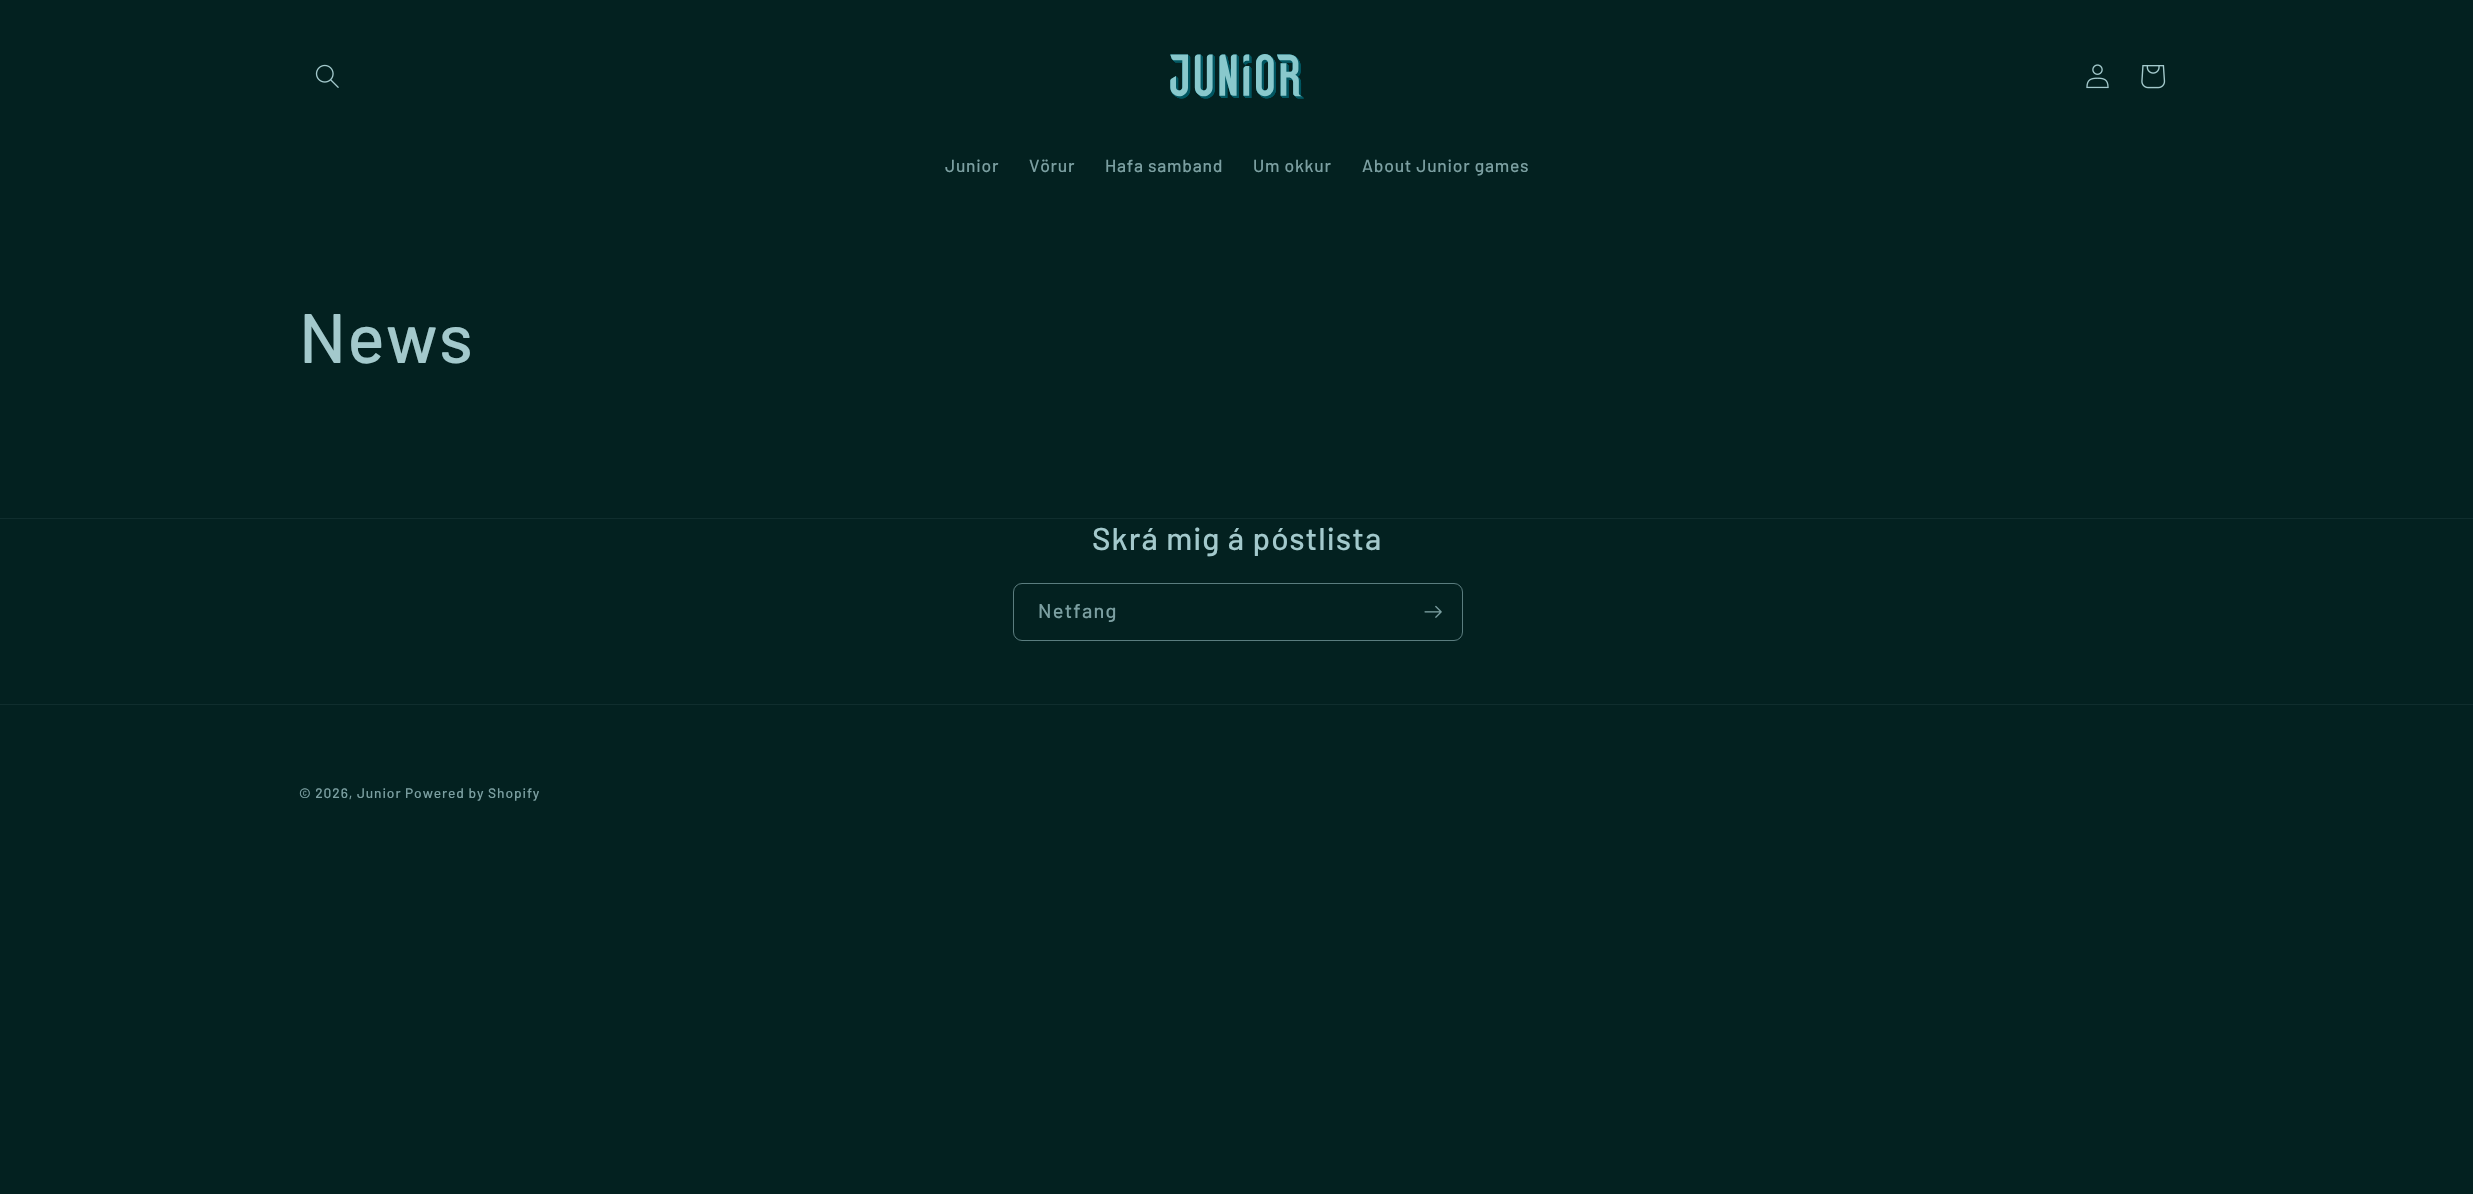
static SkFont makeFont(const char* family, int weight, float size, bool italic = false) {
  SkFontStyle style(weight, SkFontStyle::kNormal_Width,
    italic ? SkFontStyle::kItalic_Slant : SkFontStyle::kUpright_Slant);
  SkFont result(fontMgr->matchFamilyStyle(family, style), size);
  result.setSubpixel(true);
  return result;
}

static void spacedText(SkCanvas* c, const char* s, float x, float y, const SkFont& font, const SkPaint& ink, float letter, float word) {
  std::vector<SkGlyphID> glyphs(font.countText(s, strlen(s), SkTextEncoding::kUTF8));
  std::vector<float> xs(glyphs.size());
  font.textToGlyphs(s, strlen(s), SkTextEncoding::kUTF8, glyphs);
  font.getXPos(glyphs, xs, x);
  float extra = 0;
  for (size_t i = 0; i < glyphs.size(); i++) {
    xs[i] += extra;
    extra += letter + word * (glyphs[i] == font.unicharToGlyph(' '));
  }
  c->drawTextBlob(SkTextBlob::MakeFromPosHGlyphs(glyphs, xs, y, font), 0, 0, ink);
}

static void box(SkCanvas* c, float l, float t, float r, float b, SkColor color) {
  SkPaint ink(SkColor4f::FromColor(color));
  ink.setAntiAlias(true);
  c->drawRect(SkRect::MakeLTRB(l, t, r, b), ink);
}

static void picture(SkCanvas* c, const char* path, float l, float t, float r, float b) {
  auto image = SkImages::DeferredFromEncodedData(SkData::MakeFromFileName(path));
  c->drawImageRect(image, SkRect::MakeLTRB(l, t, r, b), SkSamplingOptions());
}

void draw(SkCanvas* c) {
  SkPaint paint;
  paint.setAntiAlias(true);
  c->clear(0xff032120);
  picture(c, "img_01.png", 315, 64, 339, 88);
  picture(c, "img_02.png", 1170, 54, 1304, 99);
  picture(c, "img_03.png", 2086, 64, 2109, 89);
  picture(c, "img_04.png", 2141, 65, 2166, 89);
  SkFont face1 = makeFont("Barlow", 500, 17.5f);
  paint.setColor(0xff7b9fa1);
  spacedText(c, "Junior", 945, 172, face1, paint, 0.75f, 0);
  spacedText(c, "Vörur", 1029, 172, face1, paint, 0.75f, 0);
  spacedText(c, "Hafa samband", 1105, 172, face1, paint, 0.75f, 0);
  spacedText(c, "Um okkur", 1253, 172, face1, paint, 0.75f, 0);
  spacedText(c, "About Junior games", 1362, 172, face1, paint, 0.75f, 0);
  SkFont face2 = makeFont("Barlow", 500, 70);
  paint.setColor(0xffa3c9cc);
  spacedText(c, "News", 299, 363, face2, paint, 1.05f, 0);
  box(c, 0, 518, 2473, 519, 0xff102e2e);
  SkFont face3 = makeFont("Barlow", 500, 31.5f);
  spacedText(c, "Skrá mig á póstlista", 1092, 550, face3, paint, 1.05f, 0);
  paint.setStyle(SkPaint::kStroke_Style);
  paint.setStrokeWidth(1);
  paint.setColor(0xff5b7d7f);
  c->drawRoundRect(SkRect::MakeLTRB(1013.5f, 583.5f, 1462.5f, 640.5f), 8.5f, 8.5f, paint);
  SkFont face4 = makeFont("Barlow", 500, 20);
  paint.setStyle(SkPaint::kFill_Style);
  paint.setColor(0xff7b9fa1);
  spacedText(c, "Netfang", 1038, 618, face4, paint, 1.25f, 0);
  picture(c, "img_05.png", 1424, 605, 1442, 618);
  box(c, 0, 704, 2473, 705, 0xff102e2e);
  SkFont face5 = makeFont("Barlow", 500, 13.75f);
  spacedText(c, "© 2026, Junior Powered by Shopify", 299, 798, face5, paint, 0.9f, 0);
}
